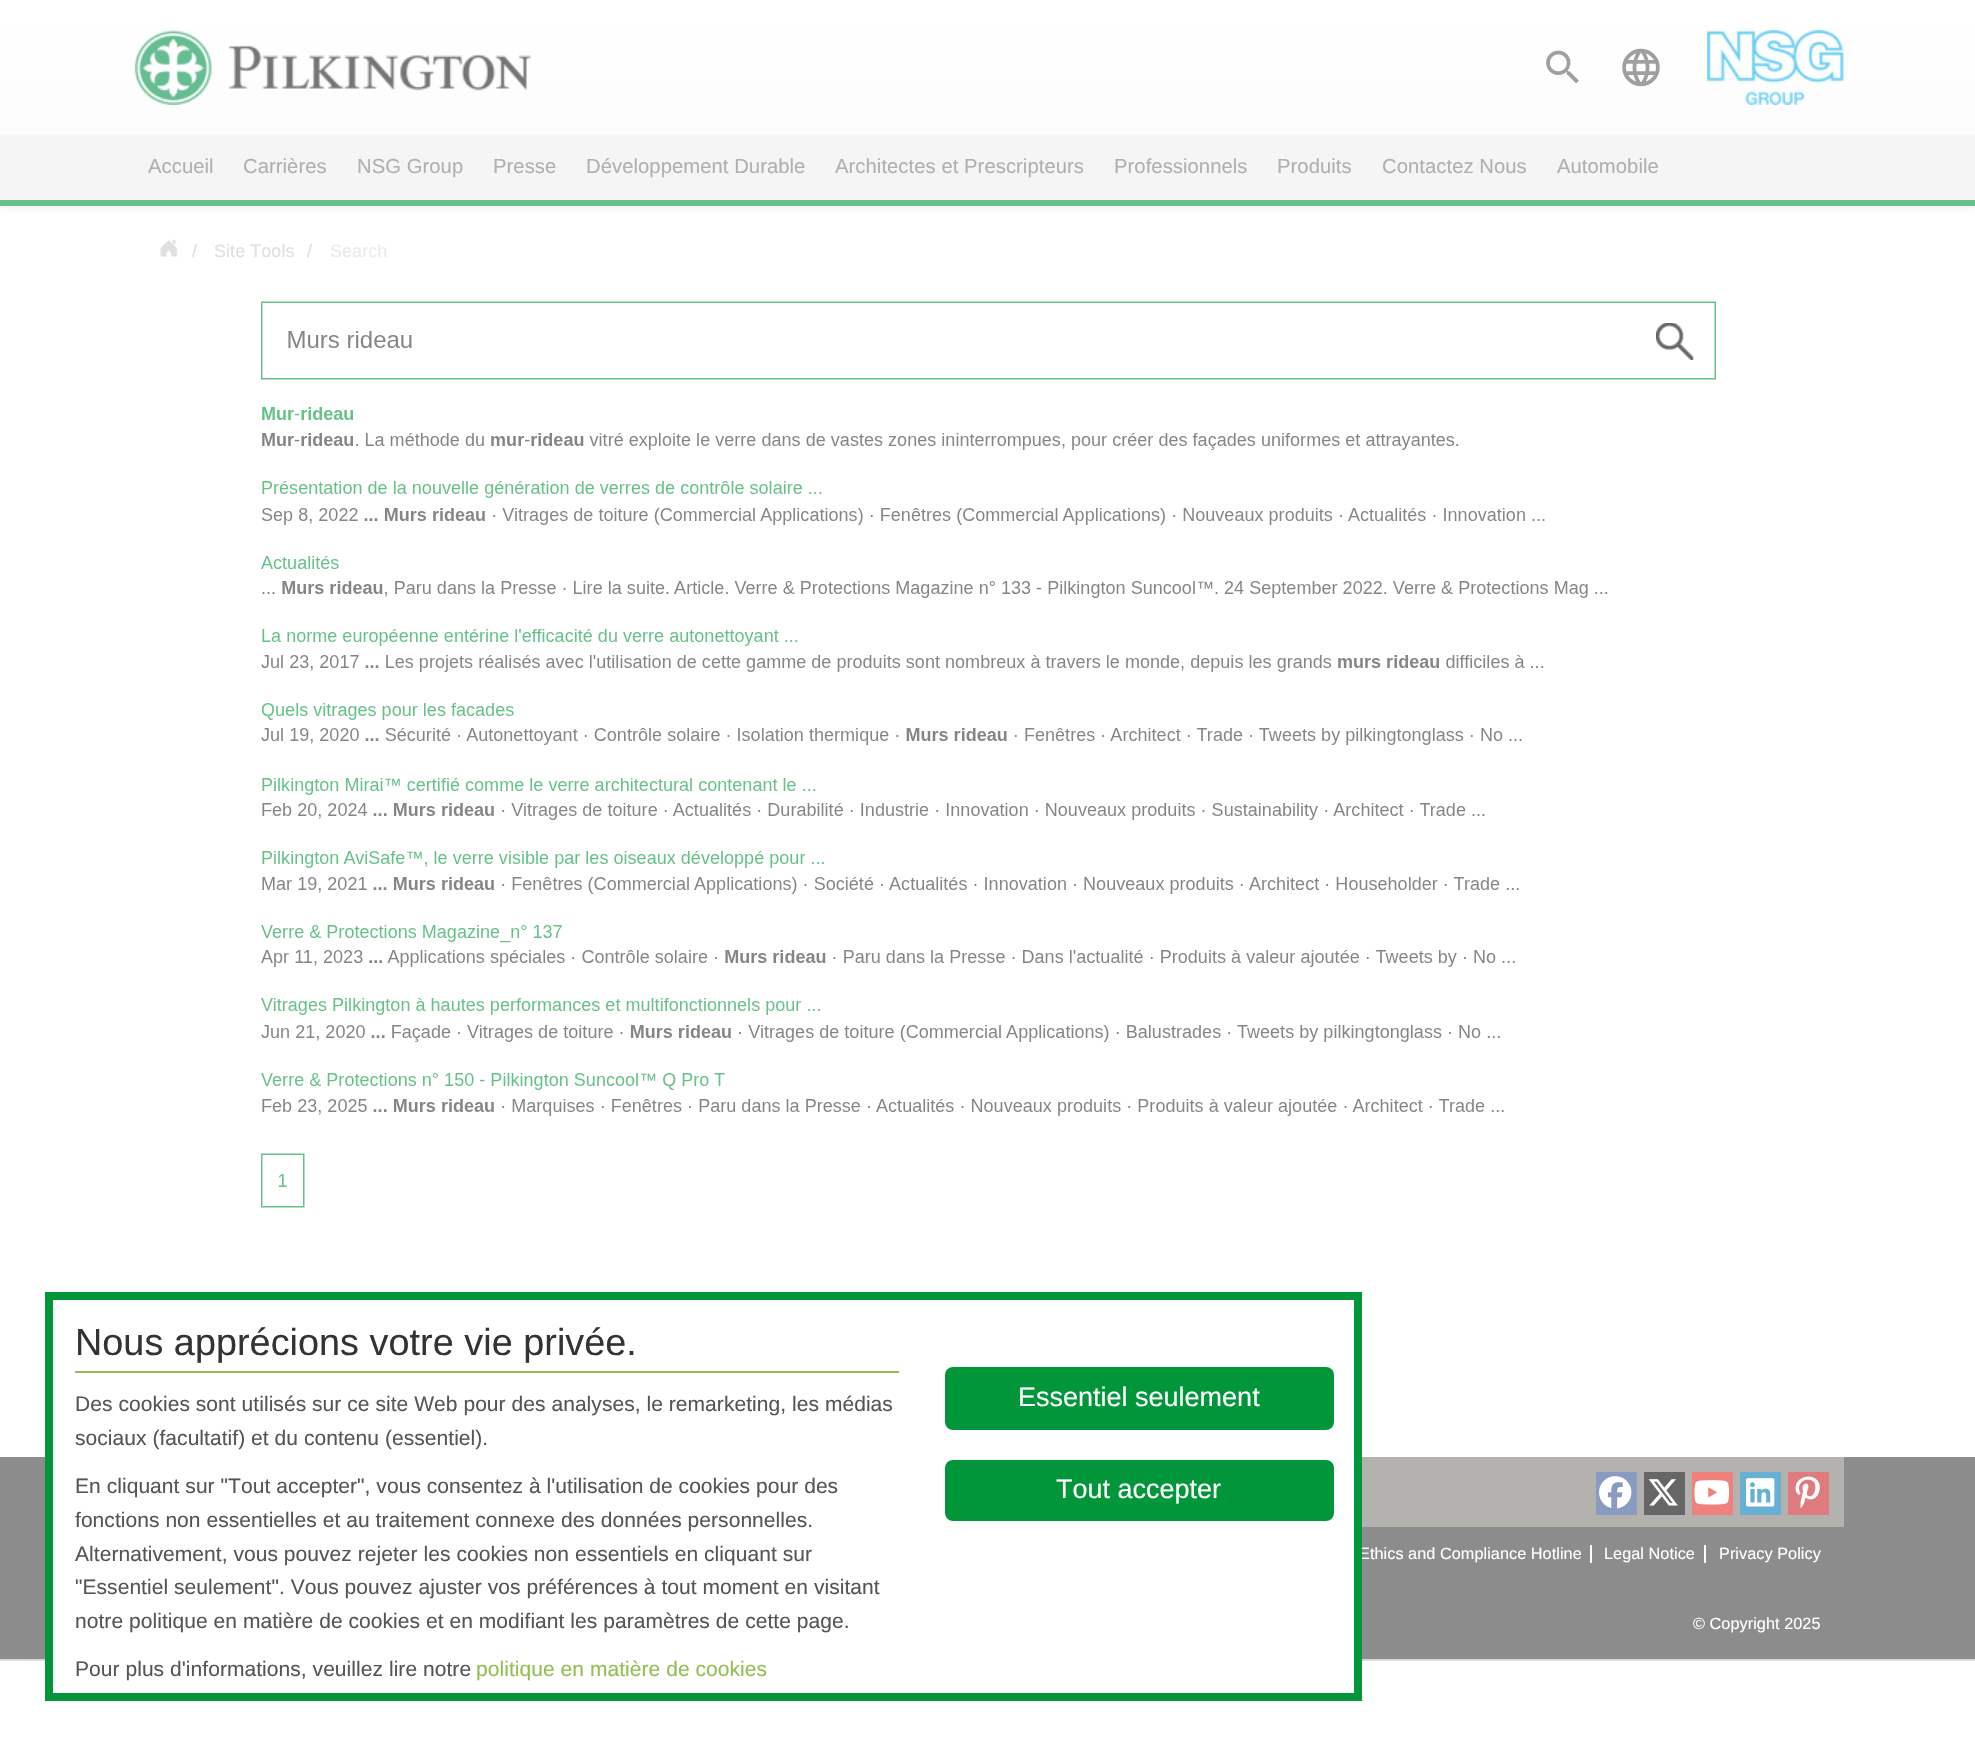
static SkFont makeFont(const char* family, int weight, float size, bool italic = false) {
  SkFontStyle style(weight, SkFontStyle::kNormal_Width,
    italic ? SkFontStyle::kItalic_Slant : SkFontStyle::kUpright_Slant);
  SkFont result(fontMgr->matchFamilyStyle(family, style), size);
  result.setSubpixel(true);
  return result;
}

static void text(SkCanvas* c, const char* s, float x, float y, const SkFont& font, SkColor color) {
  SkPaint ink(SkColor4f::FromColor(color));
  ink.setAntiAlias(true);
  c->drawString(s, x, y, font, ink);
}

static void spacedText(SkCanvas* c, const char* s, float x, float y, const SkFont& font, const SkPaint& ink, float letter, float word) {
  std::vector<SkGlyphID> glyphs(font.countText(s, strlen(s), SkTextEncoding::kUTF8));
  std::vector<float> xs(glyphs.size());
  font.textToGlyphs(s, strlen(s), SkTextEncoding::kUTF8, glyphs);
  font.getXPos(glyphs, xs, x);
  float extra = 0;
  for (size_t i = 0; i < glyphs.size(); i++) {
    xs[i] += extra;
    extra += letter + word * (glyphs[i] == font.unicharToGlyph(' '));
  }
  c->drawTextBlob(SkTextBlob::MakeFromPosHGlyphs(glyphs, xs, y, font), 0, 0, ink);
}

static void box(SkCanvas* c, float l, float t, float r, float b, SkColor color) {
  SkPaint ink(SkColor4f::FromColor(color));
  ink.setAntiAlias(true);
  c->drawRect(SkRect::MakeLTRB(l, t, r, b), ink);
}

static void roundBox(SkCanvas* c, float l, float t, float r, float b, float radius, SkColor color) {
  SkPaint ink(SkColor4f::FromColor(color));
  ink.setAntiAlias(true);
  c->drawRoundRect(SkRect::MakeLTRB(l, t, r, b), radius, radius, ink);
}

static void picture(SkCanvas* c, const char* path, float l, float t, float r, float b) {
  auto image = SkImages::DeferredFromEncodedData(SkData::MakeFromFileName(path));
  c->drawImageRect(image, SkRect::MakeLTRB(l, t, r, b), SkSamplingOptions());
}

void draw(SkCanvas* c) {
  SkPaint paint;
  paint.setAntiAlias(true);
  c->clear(0xffffffff);
  paint.setColor(0x12666666);
  paint.setMaskFilter(SkMaskFilter::MakeBlur(kNormal_SkBlurStyle, 4));
  c->drawRect(SkRect::MakeLTRB(0, 2, 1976, 209), paint);
  paint.setMaskFilter(nullptr);
  {
    const SkColor colors[] = {0xffffffff, 0xfffbfbfb};
    const float stops[] = {0, 1};
    const SkPoint ends[] = {{988, 0}, {988, 207}};
    paint.setShader(SkGradientShader::MakeLinear(ends, colors, stops, 2, SkTileMode::kClamp));
    paint.setAlpha(255);
  }
  c->drawRect(SkRect::MakeLTRB(0, 0, 1975, 135), paint);
  picture(c, "img_01.png", 134, 30, 531, 105);
  picture(c, "img_02.png", 1546, 50, 1579, 84);
  picture(c, "img_03.png", 1622, 48, 1660, 87);
  picture(c, "img_04.png", 1707, 30, 1844, 105);
  box(c, 0, 135, 1975, 207, 0xfff5f5f5);
  SkFont face1 = makeFont("Liberation Sans", 400, 20.25f);
  paint.setShader(nullptr);
  paint.setColor(0xffb0b0b0);
  spacedText(c, "Accueil", 148, 173, face1, paint, 0.05f, 0);
  spacedText(c, "Carrières", 243, 173, face1, paint, 0.05f, 0);
  spacedText(c, "NSG Group", 357, 173, face1, paint, 0.05f, 0);
  spacedText(c, "Presse", 493, 173, face1, paint, 0.05f, 0);
  spacedText(c, "Développement Durable", 586, 173, face1, paint, 0.05f, 0);
  spacedText(c, "Architectes et Prescripteurs", 835, 173, face1, paint, 0.05f, 0);
  spacedText(c, "Professionnels", 1114, 173, face1, paint, 0.05f, 0);
  spacedText(c, "Produits", 1277, 173, face1, paint, 0.05f, 0);
  spacedText(c, "Contactez Nous", 1382, 173, face1, paint, 0.05f, 0);
  spacedText(c, "Automobile", 1557, 173, face1, paint, 0.05f, 0);
  box(c, 0, 200, 1975, 206, 0xff66c088);
  picture(c, "img_05.png", 160, 239, 178, 257);
  SkFont face2 = makeFont("Liberation Sans", 400, 18);
  paint.setColor(0xffe0e0e0);
  spacedText(c, "/", 192, 257, face2, paint, 0.05f, 0);
  spacedText(c, "Site Tools", 214, 257, face2, paint, 0.05f, 0);
  spacedText(c, "/", 307, 257, face2, paint, 0.05f, 0);
  paint.setColor(0xffebebeb);
  spacedText(c, "Search", 330, 257, face2, paint, 0.05f, 0);
  picture(c, "img_06.png", 261, 301, 1716, 1208);
  box(c, 0, 1457, 1975, 1659, 0xff8c8c8c);
  box(c, 0, 1659, 1975, 1661, 0xffdadada);
  box(c, 53, 1457, 1354, 1661, 0xffffffff);
  SkFont face3 = makeFont("Liberation Sans", 400, 16.25f);
  paint.setColor(0xffffffff);
  spacedText(c, "Ethics and Compliance Hotline", 1359, 1559, face3, paint, 0.05f, 0);
  paint.setStyle(SkPaint::kStroke_Style);
  paint.setStrokeWidth(8);
  paint.setColor(0xff009639);
  c->drawRect(SkRect::MakeLTRB(49, 1296, 1358, 1697), paint);
  box(c, 75, 1371, 899, 1373, 0xff94be52);
  SkFont face4 = makeFont("Liberation Sans", 400, 37.75f);
  paint.setStyle(SkPaint::kFill_Style);
  paint.setColor(0xff333333);
  spacedText(c, "Nous apprécions votre vie privée.", 75, 1355, face4, paint, 0.05f, 0);
  SkFont face5 = makeFont("Liberation Sans", 400, 21);
  paint.setColor(0xff555555);
  spacedText(c, "Des cookies sont utilisés sur ce site Web pour des analyses, le remarketing, les médias", 75, 1411, face5, paint, 0.05f, 0);
  spacedText(c, "sociaux (facultatif) et du contenu (essentiel).", 75, 1445, face5, paint, 0.05f, 0);
  spacedText(c, "En cliquant sur \"Tout accepter\", vous consentez à l'utilisation de cookies pour des", 75, 1493, face5, paint, 0.05f, 0);
  spacedText(c, "fonctions non essentielles et au traitement connexe des données personnelles.", 75, 1527, face5, paint, 0.05f, 0);
  spacedText(c, "Alternativement, vous pouvez rejeter les cookies non essentiels en cliquant sur", 75, 1561, face5, paint, 0.05f, 0);
  spacedText(c, "\"Essentiel seulement\". Vous pouvez ajuster vos préférences à tout moment en visitant", 75, 1594, face5, paint, 0.05f, 0);
  spacedText(c, "notre politique en matière de cookies et en modifiant les paramètres de cette page.", 75, 1628, face5, paint, 0.05f, 0);
  spacedText(c, "Pour plus d'informations, veuillez lire notre", 75, 1676, face5, paint, 0.05f, 0);
  paint.setColor(0xff94be52);
  spacedText(c, "politique en matière de cookies", 476, 1676, face5, paint, 0.05f, 0);
  roundBox(c, 945, 1367, 1334, 1430, 8, 0xff009639);
  SkFont face6 = makeFont("Liberation Sans", 400, 27);
  text(c, "Essentiel seulement", 1018, 1406, face6, 0xffffffff);
  roundBox(c, 945, 1460, 1334, 1521, 8, 0xff009639);
  text(c, "Tout accepter", 1056, 1498, face6, 0xffffffff);
  box(c, 1362, 1457, 1844, 1527, 0xffb4b2ae);
  box(c, 1596, 1472, 1637, 1515, 0xff899bc1);
  picture(c, "img_07.png", 1599, 1476, 1632, 1509);
  box(c, 1644, 1472, 1685, 1515, 0xff666666);
  picture(c, "img_08.png", 1648, 1479, 1678, 1506);
  box(c, 1692, 1472, 1733, 1515, 0xffef817d);
  picture(c, "img_09.png", 1694, 1480, 1729, 1505);
  box(c, 1740, 1472, 1781, 1515, 0xff66b0d3);
  picture(c, "img_10.png", 1746, 1478, 1775, 1507);
  box(c, 1788, 1472, 1829, 1515, 0xffdf7a7e);
  picture(c, "img_11.png", 1795, 1476, 1820, 1509);
  box(c, 1590, 1545, 1592, 1563, 0xffffffff);
  paint.setColor(0xffffffff);
  spacedText(c, "Legal Notice", 1604, 1559, face3, paint, 0.05f, 0);
  box(c, 1704, 1545, 1706, 1563, 0xffffffff);
  spacedText(c, "Privacy Policy", 1719, 1559, face3, paint, 0.05f, 0);
  spacedText(c, "© Copyright 2025", 1693, 1629, face3, paint, 0.05f, 0);
}
